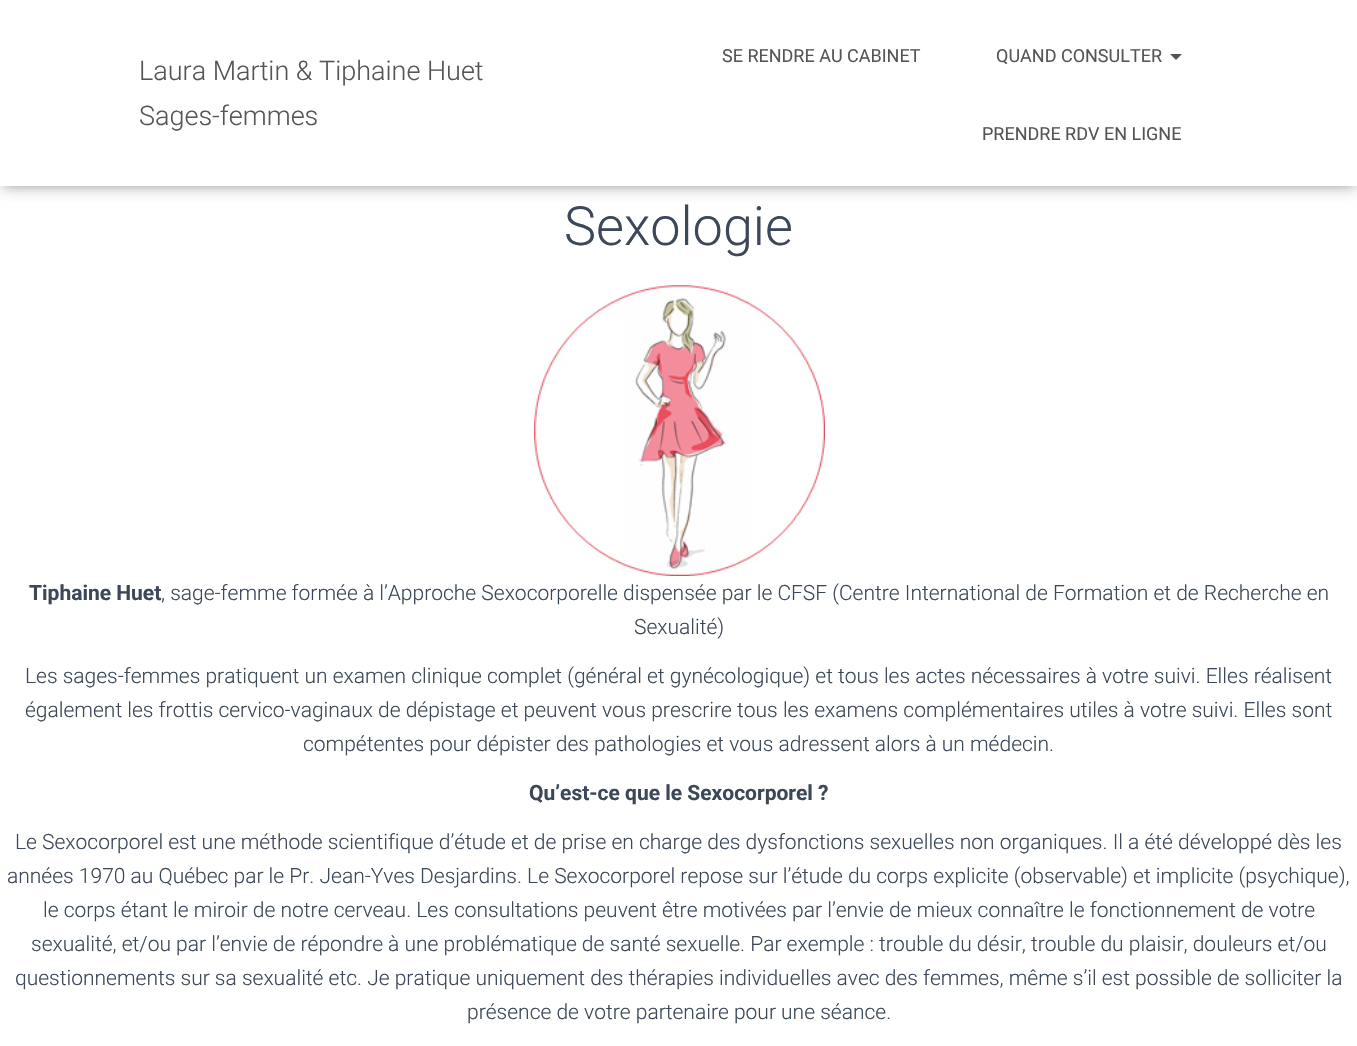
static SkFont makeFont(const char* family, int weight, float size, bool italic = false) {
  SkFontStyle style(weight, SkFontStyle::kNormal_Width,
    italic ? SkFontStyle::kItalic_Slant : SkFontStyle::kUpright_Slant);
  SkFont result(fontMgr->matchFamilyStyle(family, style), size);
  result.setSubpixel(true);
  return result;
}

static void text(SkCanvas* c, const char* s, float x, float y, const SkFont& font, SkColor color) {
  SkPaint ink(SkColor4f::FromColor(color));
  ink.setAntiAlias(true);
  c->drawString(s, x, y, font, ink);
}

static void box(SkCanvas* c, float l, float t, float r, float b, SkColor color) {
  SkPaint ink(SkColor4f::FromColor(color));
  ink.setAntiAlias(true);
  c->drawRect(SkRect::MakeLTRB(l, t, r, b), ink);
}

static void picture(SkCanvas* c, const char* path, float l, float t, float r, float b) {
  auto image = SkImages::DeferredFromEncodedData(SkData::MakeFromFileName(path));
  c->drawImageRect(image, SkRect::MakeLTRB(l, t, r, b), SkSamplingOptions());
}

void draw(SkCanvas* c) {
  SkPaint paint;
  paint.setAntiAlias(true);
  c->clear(0xffffffff);
  paint.setColor(0x1a000000);
  paint.setMaskFilter(SkMaskFilter::MakeBlur(kNormal_SkBlurStyle, 4));
  c->drawRect(SkRect::MakeLTRB(3, 9, 1355, 189), paint);
  paint.setMaskFilter(nullptr);
  paint.setColor(0x1f000000);
  paint.setMaskFilter(SkMaskFilter::MakeBlur(kNormal_SkBlurStyle, 7.5f));
  c->drawRect(SkRect::MakeLTRB(0, 2, 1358, 188), paint);
  paint.setMaskFilter(nullptr);
  paint.setColor(0x6b000000);
  paint.setMaskFilter(SkMaskFilter::MakeBlur(kNormal_SkBlurStyle, 7.5f));
  c->drawRect(SkRect::MakeLTRB(9, 11, 1349, 179), paint);
  paint.setMaskFilter(nullptr);
  box(c, 0, 0, 1357, 186, 0xffffffff);
  SkFont face1 = makeFont("Roboto", 300, 27);
  text(c, "Laura Martin & Tiphaine Huet", 139, 80, face1, 0xff555555);
  text(c, "Sages-femmes", 139, 125, face1, 0xff555555);
  SkFont face2 = makeFont("Roboto", 400, 18);
  text(c, "SE RENDRE AU CABINET", 722, 62, face2, 0xff555555);
  text(c, "QUAND CONSULTER", 996, 62, face2, 0xff555555);
  paint.setColor(0xff555555);
  c->drawPath(SkPathBuilder().moveTo(1170, 54).lineTo(1182, 54).lineTo(1176, 60).close().detach(), paint);
  text(c, "PRENDRE RDV EN LIGNE", 982, 140, face2, 0xff555555);
  SkFont face3 = makeFont("Roboto", 300, 54);
  text(c, "Sexologie", 564, 245, face3, 0xff3c4858);
  picture(c, "img_01.png", 534, 285, 825, 576);
  SkFont face4 = makeFont("Roboto", 700, 21);
  text(c, "Tiphaine Huet", 29, 600, face4, 0xff3c4858);
  SkFont face5 = makeFont("Roboto", 300, 21);
  text(c, ", sage-femme formée à l’Approche Sexocorporelle dispensée par le CFSF (Centre International de Formation et de Recherche en", 161, 600, face5, 0xff3c4858);
  text(c, "Sexualité)", 634, 634, face5, 0xff3c4858);
  text(c, "Les sages-femmes pratiquent un examen clinique complet (général et gynécologique) et tous les actes nécessaires à votre suivi. Elles réalisent", 25, 683, face5, 0xff3c4858);
  text(c, "également les frottis cervico-vaginaux de dépistage et peuvent vous prescrire tous les examens complémentaires utiles à votre suivi. Elles sont", 25, 717, face5, 0xff3c4858);
  text(c, "compétentes pour dépister des pathologies et vous adressent alors à un médecin.", 303, 751, face5, 0xff3c4858);
  text(c, "Qu’est-ce que le Sexocorporel ?", 529, 800, face4, 0xff3c4858);
  text(c, "Le Sexocorporel est une méthode scientifique d’étude et de prise en charge des dysfonctions sexuelles non organiques. Il a été développé dès les", 15, 849, face5, 0xff3c4858);
  text(c, "années 1970 au Québec par le Pr. Jean-Yves Desjardins. Le Sexocorporel repose sur l’étude du corps explicite (observable) et implicite (psychique),", 7, 883, face5, 0xff3c4858);
  text(c, "le corps étant le miroir de notre cerveau. Les consultations peuvent être motivées par l’envie de mieux connaître le fonctionnement de votre", 43, 917, face5, 0xff3c4858);
  text(c, "sexualité, et/ou par l’envie de répondre à une problématique de santé sexuelle. Par exemple : trouble du désir, trouble du plaisir, douleurs et/ou", 31, 951, face5, 0xff3c4858);
  text(c, "questionnements sur sa sexualité etc. Je pratique uniquement des thérapies individuelles avec des femmes, même s’il est possible de solliciter la", 15, 985, face5, 0xff3c4858);
  text(c, "présence de votre partenaire pour une séance.", 467, 1019, face5, 0xff3c4858);
}
